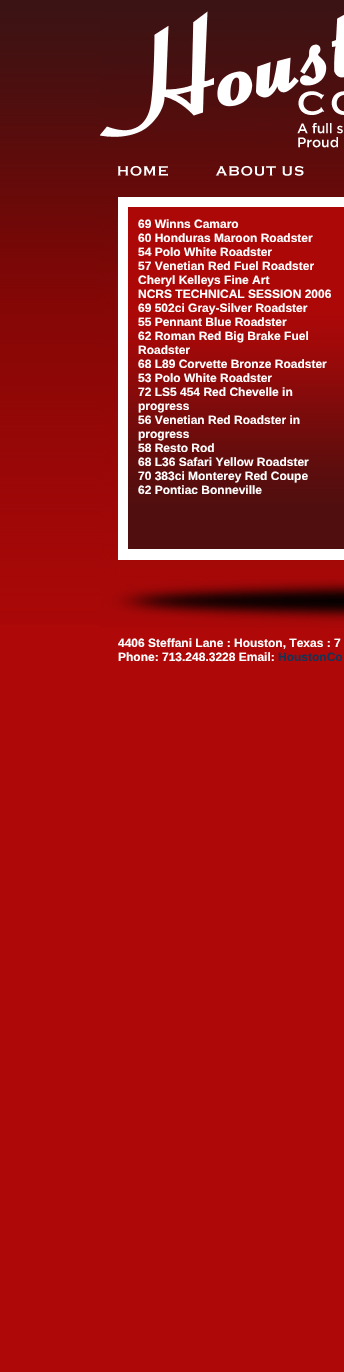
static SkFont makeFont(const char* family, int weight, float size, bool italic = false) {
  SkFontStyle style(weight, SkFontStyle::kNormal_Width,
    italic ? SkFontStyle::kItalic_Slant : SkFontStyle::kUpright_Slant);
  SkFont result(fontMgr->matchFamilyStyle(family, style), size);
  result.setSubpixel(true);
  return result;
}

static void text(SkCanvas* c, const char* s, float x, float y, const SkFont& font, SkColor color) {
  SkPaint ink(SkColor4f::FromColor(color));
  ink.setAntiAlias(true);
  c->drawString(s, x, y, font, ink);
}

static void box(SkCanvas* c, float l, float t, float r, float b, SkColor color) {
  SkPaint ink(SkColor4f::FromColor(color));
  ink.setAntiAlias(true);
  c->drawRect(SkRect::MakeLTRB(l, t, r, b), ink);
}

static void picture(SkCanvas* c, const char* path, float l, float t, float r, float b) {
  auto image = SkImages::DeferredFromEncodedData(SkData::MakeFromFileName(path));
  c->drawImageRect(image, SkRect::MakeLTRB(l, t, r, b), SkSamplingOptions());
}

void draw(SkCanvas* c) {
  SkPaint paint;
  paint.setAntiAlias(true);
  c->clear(0xffae0808);
  picture(c, "img_01.png", 0, 0, 344, 625);
  picture(c, "img_02.png", 100, 11, 344, 148);
  picture(c, "img_03.png", 117, 165, 168, 176);
  picture(c, "img_04.png", 215, 165, 304, 176);
  box(c, 118, 197, 344, 207, 0xffffffff);
  picture(c, "img_05.png", 100, 207, 118, 628);
  box(c, 118, 207, 128, 560, 0xffffffff);
  picture(c, "img_06.png", 128, 207, 344, 549);
  SkFont face1 = makeFont("Liberation Sans", 700, 12);
  text(c, "69 Winns Camaro", 138, 228, face1, 0xffffffff);
  text(c, "60 Honduras Maroon Roadster", 138, 242, face1, 0xffffffff);
  text(c, "54 Polo White Roadster", 138, 256, face1, 0xffffffff);
  text(c, "57 Venetian Red Fuel Roadster", 138, 270, face1, 0xffffffff);
  text(c, "Cheryl Kelleys Fine Art", 138, 284, face1, 0xffffffff);
  text(c, "NCRS TECHNICAL SESSION 2006", 138, 298, face1, 0xffffffff);
  text(c, "69 502ci Gray-Silver Roadster", 138, 312, face1, 0xffffffff);
  text(c, "55 Pennant Blue Roadster", 138, 326, face1, 0xffffffff);
  text(c, "62 Roman Red Big Brake Fuel", 138, 340, face1, 0xffffffff);
  text(c, "Roadster", 138, 354, face1, 0xffffffff);
  text(c, "68 L89 Corvette Bronze Roadster", 138, 368, face1, 0xffffffff);
  text(c, "53 Polo White Roadster", 138, 382, face1, 0xffffffff);
  text(c, "72 LS5 454 Red Chevelle in", 138, 396, face1, 0xffffffff);
  text(c, "progress", 138, 410, face1, 0xffffffff);
  text(c, "56 Venetian Red Roadster in", 138, 424, face1, 0xffffffff);
  text(c, "progress", 138, 438, face1, 0xffffffff);
  text(c, "58 Resto Rod", 138, 452, face1, 0xffffffff);
  text(c, "68 L36 Safari Yellow Roadster", 138, 466, face1, 0xffffffff);
  text(c, "70 383ci Monterey Red Coupe", 138, 480, face1, 0xffffffff);
  text(c, "62 Pontiac Bonneville", 138, 494, face1, 0xffffffff);
  box(c, 128, 549, 344, 560, 0xffffffff);
  picture(c, "img_07.png", 118, 579, 344, 620);
  picture(c, "img_08.png", 119, 620, 344, 628);
  text(c, "4406 Steffani Lane : Houston, Texas : 7", 118, 647, face1, 0xffffffff);
  text(c, "Phone: 713.248.3228 Email:", 118, 661, face1, 0xffffffff);
  text(c, "HoustonCo", 278, 661, face1, 0xff123456);
}
